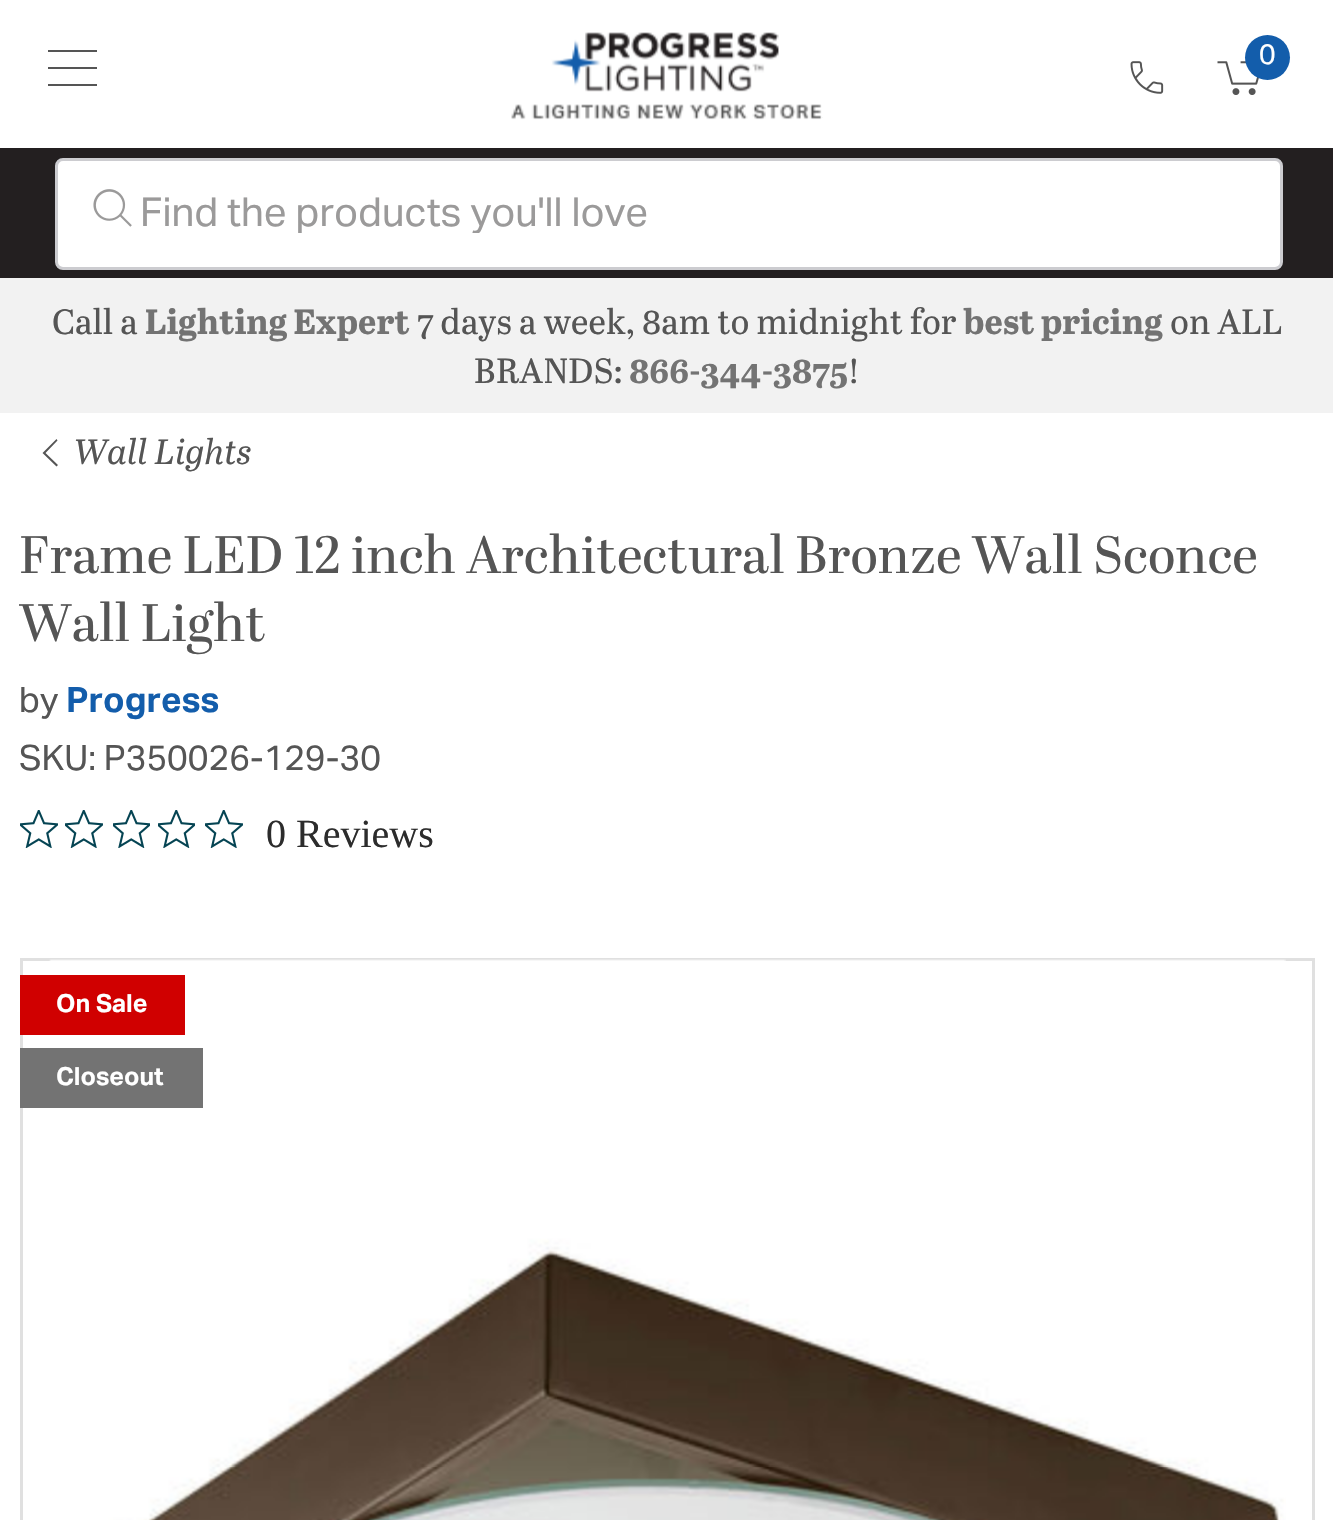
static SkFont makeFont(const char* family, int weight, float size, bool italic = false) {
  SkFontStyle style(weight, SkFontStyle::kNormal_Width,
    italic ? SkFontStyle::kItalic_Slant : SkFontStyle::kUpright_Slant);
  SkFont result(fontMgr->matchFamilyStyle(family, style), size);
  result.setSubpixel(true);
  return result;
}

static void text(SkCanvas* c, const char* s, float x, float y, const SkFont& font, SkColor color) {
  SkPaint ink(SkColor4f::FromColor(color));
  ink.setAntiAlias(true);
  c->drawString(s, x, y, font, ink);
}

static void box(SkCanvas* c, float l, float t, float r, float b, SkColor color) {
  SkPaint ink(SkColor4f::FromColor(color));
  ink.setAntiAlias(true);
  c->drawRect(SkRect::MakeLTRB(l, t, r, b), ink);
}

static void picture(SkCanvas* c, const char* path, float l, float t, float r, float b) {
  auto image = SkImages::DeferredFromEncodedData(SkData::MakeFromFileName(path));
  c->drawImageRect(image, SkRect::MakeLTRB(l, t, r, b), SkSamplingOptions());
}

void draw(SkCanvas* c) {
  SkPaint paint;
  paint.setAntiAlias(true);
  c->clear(0xffffffff);
  paint.setColor(0xff555555);
  c->drawPath(SkPathBuilder().moveTo(48, 50).lineTo(97, 50).lineTo(97, 52).lineTo(48, 52).close().moveTo(48, 67).lineTo(97, 67).lineTo(97, 69).lineTo(48, 69).close().moveTo(48, 84).lineTo(97, 84).lineTo(97, 86).lineTo(48, 86).close().detach(), paint);
  picture(c, "img_01.png", 822, 117, 823, 118);
  picture(c, "img_02.png", 510, 30, 822, 120);
  picture(c, "img_03.png", 1217, 61, 1259, 95);
  paint.setColor(0xff135dab);
  c->drawCircle(1267.5f, 57.5f, 22.5f, paint);
  SkFont face1 = makeFont("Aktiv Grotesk", 400, 28);
  text(c, "0", 1259, 64, face1, 0xffffffff);
  picture(c, "img_04.png", 1130, 61, 1164, 94);
  box(c, 0, 148, 1333, 278, 0xff231f20);
  paint.setColor(0xffffffff);
  c->drawRoundRect(SkRect::MakeLTRB(56.5f, 159.5f, 1281.5f, 268.5f), 6.5f, 6.5f, paint);
  paint.setStyle(SkPaint::kStroke_Style);
  paint.setStrokeWidth(3);
  paint.setColor(0xffccccd0);
  c->drawRoundRect(SkRect::MakeLTRB(56.5f, 159.5f, 1281.5f, 268.5f), 6.5f, 6.5f, paint);
  picture(c, "img_05.png", 93, 189, 132, 227);
  c->save();
  c->clipRect(SkRect::MakeLTRB(93, 188, 1245, 233));
  SkFont face2 = makeFont("Aktiv Grotesk", 400, 40);
  text(c, "Find the products you'll love", 140, 226, face2, 0xff9b9a9a);
  c->restore();
  box(c, 0, 278, 1333, 413, 0xfff2f2f2);
  SkFont face3 = makeFont("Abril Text", 400, 35);
  text(c, "Call a", 52, 334, face3, 0xff555555);
  SkFont face4 = makeFont("Abril Text", 700, 35);
  text(c, "Lighting Expert", 145, 334, face4, 0xff737373);
  text(c, "7 days a week, 8am to midnight for", 417, 334, face3, 0xff555555);
  text(c, "best pricing", 963, 334, face4, 0xff737373);
  text(c, "on ALL", 1170, 334, face3, 0xff555555);
  text(c, "BRANDS:", 474, 383, face3, 0xff555555);
  text(c, "866-344-3875", 629, 383, face4, 0xff737373);
  text(c, "!", 847, 383, face3, 0xff555555);
  SkFont face5 = makeFont("Abril Text", 400, 35, true);
  text(c, "Wall Lights", 74, 464, face5, 0xff555555);
  paint.setStyle(SkPaint::kFill_Style);
  paint.setColor(0xff555555);
  c->drawPath(SkPathBuilder().moveTo(58, 465).lineTo(56.5f, 466.5f).lineTo(42.5f, 453).lineTo(56.5f, 439).lineTo(57.5f, 440.5f).lineTo(45.5f, 453).close().detach(), paint);
  SkFont face6 = makeFont("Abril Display", 400, 52.5f);
  text(c, "Frame LED 12 inch Architectural Bronze Wall Sconce", 19, 573, face6, 0xff555555);
  text(c, "Wall Light", 19, 641, face6, 0xff555555);
  SkFont face7 = makeFont("Aktiv Grotesk", 400, 35);
  text(c, "by", 19, 712, face7, 0xff555555);
  SkFont face8 = makeFont("Aktiv Grotesk", 700, 35);
  text(c, "Progress", 66, 712, face8, 0xff135dab);
  text(c, "SKU: P350026-129-30", 19, 770, face7, 0xff555555);
  picture(c, "img_06.png", 20, 810, 58, 848);
  picture(c, "img_06.png", 65, 810, 103, 848);
  picture(c, "img_07.png", 113, 810, 150, 848);
  picture(c, "img_07.png", 158, 810, 195, 848);
  picture(c, "img_06.png", 205, 810, 243, 848);
  SkFont face9 = makeFont("Liberation Serif", 400, 40);
  text(c, "0 Reviews", 266, 847, face9, 0xff2c2c2c);
  paint.setStyle(SkPaint::kStroke_Style);
  paint.setColor(0xffe0e0e0);
  c->drawRect(SkRect::MakeLTRB(21.5f, 959.5f, 1313.5f, 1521.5f), paint);
  picture(c, "img_08.png", 49, 959, 1286, 1520);
  box(c, 20, 975, 185, 1035, 0xffd00000);
  SkFont face10 = makeFont("Aktiv Grotesk", 700, 25);
  text(c, "On Sale", 56, 1012, face10, 0xffffffff);
  box(c, 20, 1048, 203, 1108, 0xff737373);
  text(c, "Closeout", 56, 1085, face10, 0xffffffff);
}
